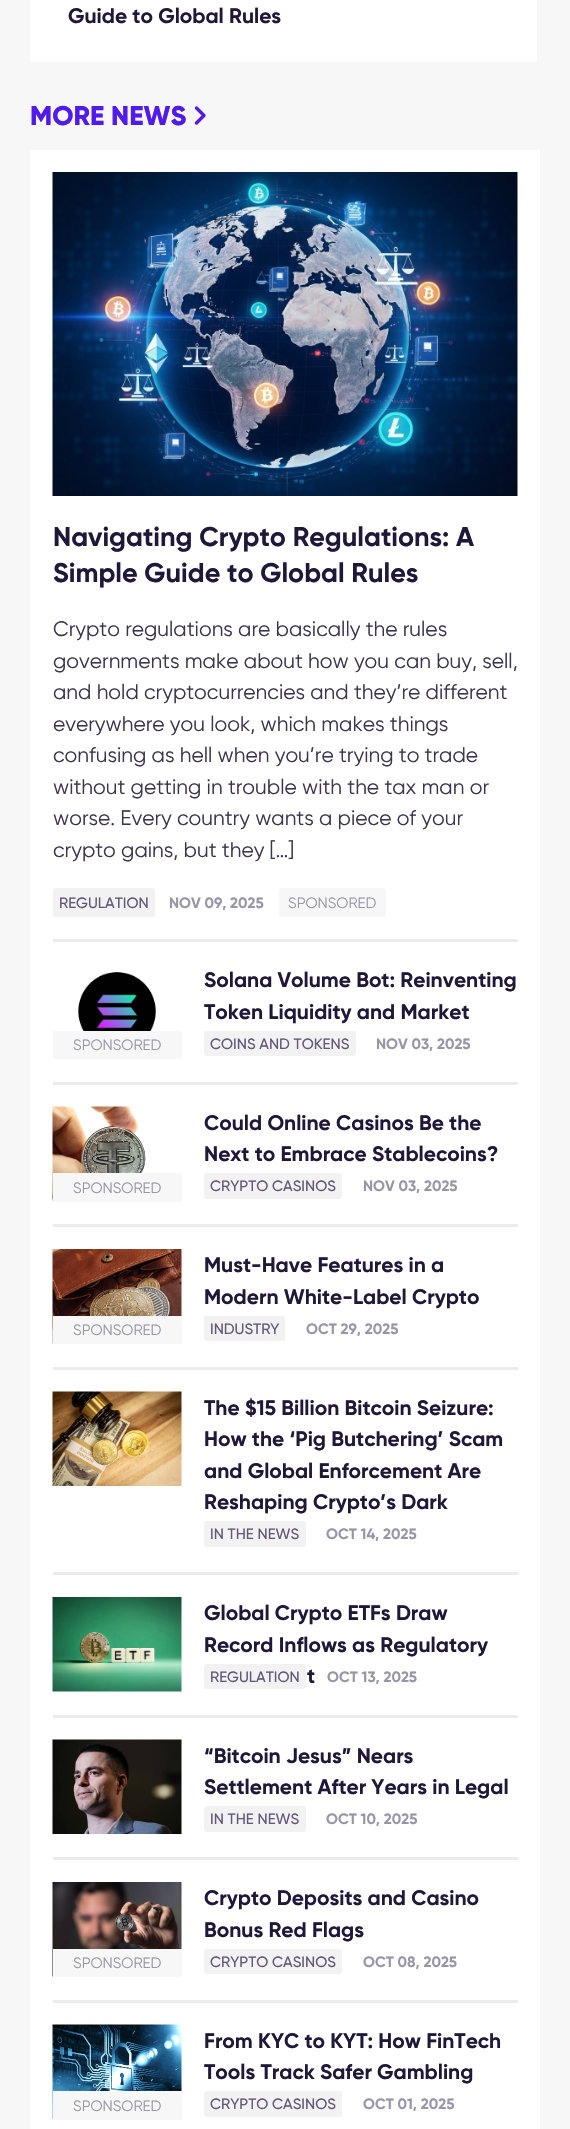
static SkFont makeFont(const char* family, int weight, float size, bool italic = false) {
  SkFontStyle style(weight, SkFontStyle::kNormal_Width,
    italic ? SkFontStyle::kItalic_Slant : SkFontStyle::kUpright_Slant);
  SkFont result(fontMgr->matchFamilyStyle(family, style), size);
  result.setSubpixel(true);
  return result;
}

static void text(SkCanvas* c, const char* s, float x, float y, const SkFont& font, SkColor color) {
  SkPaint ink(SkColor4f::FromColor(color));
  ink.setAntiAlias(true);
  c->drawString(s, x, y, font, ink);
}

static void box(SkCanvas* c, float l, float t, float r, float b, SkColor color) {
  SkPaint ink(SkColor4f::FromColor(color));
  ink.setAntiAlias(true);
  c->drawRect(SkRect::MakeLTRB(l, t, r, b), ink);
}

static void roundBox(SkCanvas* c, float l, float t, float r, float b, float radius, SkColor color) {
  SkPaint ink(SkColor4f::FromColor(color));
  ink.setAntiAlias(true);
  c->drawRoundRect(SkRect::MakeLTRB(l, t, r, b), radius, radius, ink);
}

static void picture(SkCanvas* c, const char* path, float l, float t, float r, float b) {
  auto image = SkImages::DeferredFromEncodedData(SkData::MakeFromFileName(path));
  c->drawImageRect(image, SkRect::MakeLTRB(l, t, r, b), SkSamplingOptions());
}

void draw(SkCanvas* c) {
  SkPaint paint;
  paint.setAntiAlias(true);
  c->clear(0xfff7f7f8);
  box(c, 30, 0, 537, 62, 0xffffffff);
  SkFont face1 = makeFont("Gilroy", 700, 21);
  text(c, "Guide to Global Rules", 68, 23, face1, 0xff201838);
  SkFont face2 = makeFont("Gilroy", 800, 27);
  text(c, "MORE NEWS", 30, 125, face2, 0xff511ceb);
  paint.setStyle(SkPaint::kStroke_Style);
  paint.setStrokeWidth(3.4f);
  paint.setStrokeCap(SkPaint::kRound_Cap);
  paint.setStrokeJoin(SkPaint::kRound_Join);
  paint.setColor(0xff511ceb);
  c->drawPath(SkPathBuilder().moveTo(196.5f, 108).lineTo(204, 115.5f).lineTo(196.5f, 123).detach(), paint);
  box(c, 30, 150, 540, 2129, 0xffffffff);
  box(c, 53, 939, 518, 942, 0xffececec);
  picture(c, "img_01.png", 52, 172, 518, 496);
  SkFont face3 = makeFont("Gilroy", 700, 27);
  text(c, "Navigating Crypto Regulations: A", 53, 546, face3, 0xff201838);
  text(c, "Simple Guide to Global Rules", 53, 582, face3, 0xff201838);
  SkFont face4 = makeFont("Gilroy", 400, 21);
  text(c, "Crypto regulations are basically the rules", 53, 636, face4, 0xff3b344f);
  text(c, "governments make about how you can buy, sell,", 53, 668, face4, 0xff3b344f);
  text(c, "and hold cryptocurrencies and they’re different", 53, 699, face4, 0xff3b344f);
  text(c, "everywhere you look, which makes things", 53, 731, face4, 0xff3b344f);
  text(c, "confusing as hell when you’re trying to trade", 53, 762, face4, 0xff3b344f);
  text(c, "without getting in trouble with the tax man or", 53, 794, face4, 0xff3b344f);
  text(c, "worse. Every country wants a piece of your", 53, 825, face4, 0xff3b344f);
  text(c, "crypto gains, but they […]", 53, 857, face4, 0xff3b344f);
  roundBox(c, 53, 888, 155, 917, 3, 0xfff2f2f2);
  SkFont face5 = makeFont("Gilroy", 500, 15);
  text(c, "REGULATION", 59, 908, face5, 0xff615977);
  SkFont face6 = makeFont("Gilroy", 700, 15);
  text(c, "NOV 09, 2025", 169, 908, face6, 0xff9995a8);
  roundBox(c, 279, 888, 386, 917, 3, 0xfff7f7f8);
  SkFont face7 = makeFont("Gilroy", 400, 15);
  text(c, "SPONSORED", 288, 908, face7, 0xff9995a8);
  box(c, 53, 1082, 518, 1085, 0xffececec);
  text(c, "Solana Volume Bot: Reinventing", 204, 987, face1, 0xff201838);
  text(c, "Token Liquidity and Market", 204, 1019, face1, 0xff201838);
  picture(c, "img_02.png", 78, 972, 156, 1031);
  box(c, 53, 1031, 182, 1059, 0xfff7f7f8);
  text(c, "SPONSORED", 73, 1050, face7, 0xff9995a8);
  roundBox(c, 204, 1031, 356, 1056, 3, 0xfff2f2f2);
  text(c, "COINS AND TOKENS", 210, 1049, face5, 0xff615977);
  text(c, "NOV 03, 2025", 376, 1049, face6, 0xff9995a8);
  box(c, 53, 1224, 518, 1227, 0xffececec);
  text(c, "Could Online Casinos Be the", 204, 1130, face1, 0xff201838);
  text(c, "Next to Embrace Stablecoins?", 204, 1161, face1, 0xff201838);
  picture(c, "img_03.png", 52, 1106, 146, 1201);
  box(c, 53, 1173, 182, 1202, 0xfff7f7f8);
  text(c, "SPONSORED", 73, 1193, face7, 0xff9995a8);
  roundBox(c, 204, 1173, 342, 1199, 3, 0xfff2f2f2);
  text(c, "CRYPTO CASINOS", 210, 1191, face5, 0xff615977);
  text(c, "NOV 03, 2025", 363, 1191, face6, 0xff9995a8);
  box(c, 53, 1367, 518, 1370, 0xffececec);
  text(c, "Must-Have Features in a", 204, 1272, face1, 0xff201838);
  text(c, "Modern White-Label Crypto", 204, 1304, face1, 0xff201838);
  picture(c, "img_04.png", 52, 1249, 182, 1344);
  box(c, 53, 1316, 182, 1344, 0xfff7f7f8);
  text(c, "SPONSORED", 73, 1335, face7, 0xff9995a8);
  roundBox(c, 204, 1316, 285, 1341, 3, 0xfff2f2f2);
  text(c, "INDUSTRY", 210, 1334, face5, 0xff615977);
  text(c, "OCT 29, 2025", 306, 1334, face6, 0xff9995a8);
  box(c, 53, 1572, 518, 1575, 0xffececec);
  picture(c, "img_05.png", 52, 1391, 182, 1486);
  text(c, "The $15 Billion Bitcoin Seizure:", 204, 1415, face1, 0xff201838);
  text(c, "How the ‘Pig Butchering’ Scam", 204, 1446, face1, 0xff201838);
  text(c, "and Global Enforcement Are", 204, 1478, face1, 0xff201838);
  text(c, "Reshaping Crypto’s Dark", 204, 1509, face1, 0xff201838);
  roundBox(c, 204, 1521, 306, 1547, 3, 0xfff2f2f2);
  text(c, "IN THE NEWS", 210, 1539, face5, 0xff615977);
  text(c, "OCT 14, 2025", 326, 1539, face6, 0xff9995a8);
  box(c, 53, 1715, 518, 1718, 0xffececec);
  picture(c, "img_06.png", 52, 1597, 182, 1692);
  text(c, "Global Crypto ETFs Draw", 204, 1620, face1, 0xff201838);
  text(c, "Record Inflows as Regulatory", 204, 1652, face1, 0xff201838);
  text(c, "t", 307, 1683, face1, 0xff201838);
  roundBox(c, 204, 1664, 306, 1689, 3, 0xfff2f2f2);
  text(c, "REGULATION", 210, 1682, face5, 0xff615977);
  text(c, "OCT 13, 2025", 327, 1682, face6, 0xff9995a8);
  box(c, 53, 1857, 518, 1860, 0xffececec);
  picture(c, "img_07.png", 52, 1739, 182, 1834);
  text(c, "“Bitcoin Jesus” Nears", 204, 1763, face1, 0xff201838);
  text(c, "Settlement After Years in Legal", 204, 1794, face1, 0xff201838);
  roundBox(c, 204, 1806, 306, 1832, 3, 0xfff2f2f2);
  text(c, "IN THE NEWS", 210, 1824, face5, 0xff615977);
  text(c, "OCT 10, 2025", 326, 1824, face6, 0xff9995a8);
  box(c, 53, 2000, 518, 2003, 0xffececec);
  text(c, "Crypto Deposits and Casino", 204, 1905, face1, 0xff201838);
  text(c, "Bonus Red Flags", 204, 1937, face1, 0xff201838);
  picture(c, "img_08.png", 52, 1882, 182, 1977);
  box(c, 53, 1949, 182, 1977, 0xfff7f7f8);
  text(c, "SPONSORED", 73, 1968, face7, 0xff9995a8);
  roundBox(c, 204, 1949, 342, 1974, 3, 0xfff2f2f2);
  text(c, "CRYPTO CASINOS", 210, 1967, face5, 0xff615977);
  text(c, "OCT 08, 2025", 363, 1967, face6, 0xff9995a8);
  text(c, "From KYC to KYT: How FinTech", 204, 2048, face1, 0xff201838);
  text(c, "Tools Track Safer Gambling", 204, 2079, face1, 0xff201838);
  picture(c, "img_09.png", 52, 2024, 182, 2119);
  box(c, 53, 2091, 182, 2120, 0xfff7f7f8);
  text(c, "SPONSORED", 73, 2111, face7, 0xff9995a8);
  roundBox(c, 204, 2091, 342, 2117, 3, 0xfff2f2f2);
  text(c, "CRYPTO CASINOS", 210, 2109, face5, 0xff615977);
  text(c, "OCT 01, 2025", 363, 2109, face6, 0xff9995a8);
}
